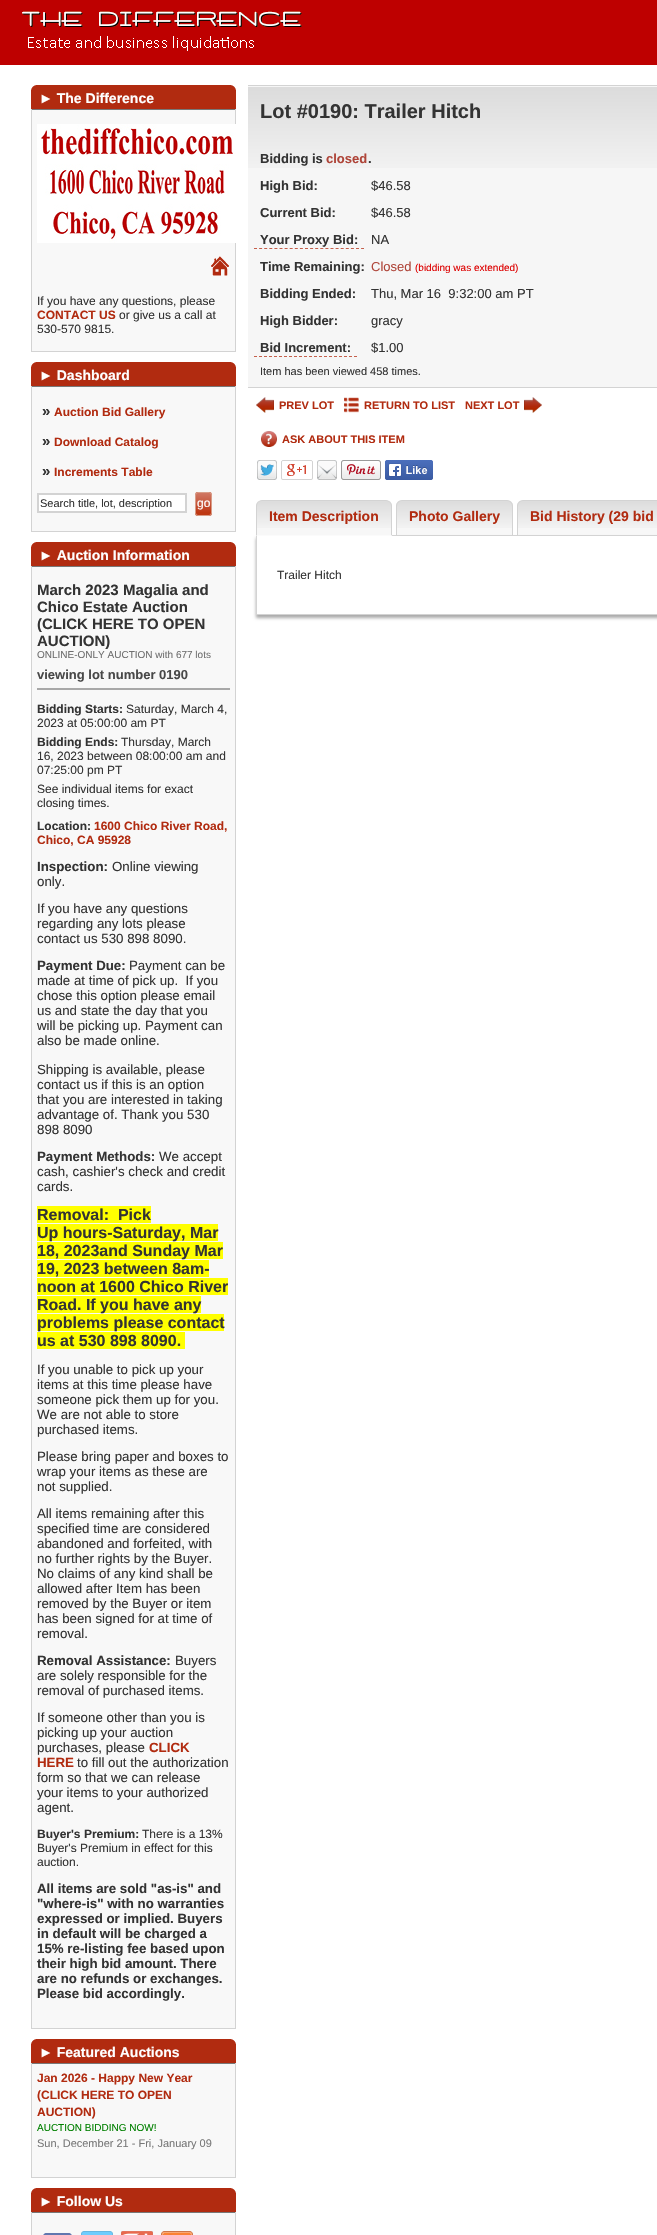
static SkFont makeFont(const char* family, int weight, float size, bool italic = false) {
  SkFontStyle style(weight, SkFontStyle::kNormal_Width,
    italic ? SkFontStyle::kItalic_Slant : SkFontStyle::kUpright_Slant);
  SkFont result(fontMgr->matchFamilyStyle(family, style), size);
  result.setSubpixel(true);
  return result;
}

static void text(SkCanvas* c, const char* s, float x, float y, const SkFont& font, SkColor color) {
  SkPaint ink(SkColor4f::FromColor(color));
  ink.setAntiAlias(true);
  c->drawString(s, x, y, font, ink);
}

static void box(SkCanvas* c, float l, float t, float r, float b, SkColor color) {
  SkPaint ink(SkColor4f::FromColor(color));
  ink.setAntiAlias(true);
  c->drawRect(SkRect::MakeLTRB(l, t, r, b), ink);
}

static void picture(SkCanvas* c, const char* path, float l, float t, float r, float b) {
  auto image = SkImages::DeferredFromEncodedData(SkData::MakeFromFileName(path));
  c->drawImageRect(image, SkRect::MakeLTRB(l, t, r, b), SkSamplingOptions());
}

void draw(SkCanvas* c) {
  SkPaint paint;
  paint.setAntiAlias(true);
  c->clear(0xffffffff);
  box(c, 0, 0, 657, 65, 0xffbe0000);
  picture(c, "img_01.png", 22, 11, 302, 51);
  box(c, 34, 85, 233, 86, 0xffc4604b);
  box(c, 232, 85, 233, 86, 0xffdda398);
  box(c, 34, 85, 35, 86, 0xffdda398);
  box(c, 36, 85, 231, 86, 0xffb12b10);
  box(c, 32, 86, 235, 87, 0xffbf533d);
  box(c, 234, 86, 235, 87, 0xfff7e9e7);
  box(c, 32, 86, 33, 87, 0xfff7e9e7);
  box(c, 34, 86, 233, 87, 0xffb12b10);
  box(c, 32, 87, 235, 88, 0xffb12b10);
  box(c, 234, 87, 235, 88, 0xffbf533d);
  box(c, 32, 87, 33, 88, 0xffbf533d);
  box(c, 31, 88, 236, 90, 0xffb12b10);
  box(c, 235, 88, 236, 89, 0xffdda398);
  box(c, 31, 88, 32, 89, 0xffdda398);
  box(c, 235, 89, 236, 90, 0xffc4604b);
  box(c, 31, 89, 32, 90, 0xffc4604b);
  box(c, 31, 90, 236, 109, 0xffb12b10);
  SkFont face1 = makeFont("Liberation Sans", 700, 14);
  text(c, "► The Difference", 39, 103, face1, 0xffffffff);
  box(c, 32, 110, 235, 351, 0xfff8f8f8);
  box(c, 31, 109, 236, 110, 0xff787878);
  box(c, 235, 109, 236, 352, 0xffd3d3d3);
  box(c, 31, 351, 236, 352, 0xffd3d3d3);
  box(c, 31, 109, 32, 352, 0xffd3d3d3);
  picture(c, "img_02.png", 37, 124, 236, 243);
  picture(c, "img_03.png", 211, 256, 229, 276);
  SkFont face2 = makeFont("Liberation Sans", 400, 12);
  text(c, "If you have any questions, please", 37, 305, face2, 0xff333333);
  SkFont face3 = makeFont("Liberation Sans", 700, 12);
  text(c, "CONTACT US", 37, 319, face3, 0xffb12b10);
  text(c, "or give us a call at", 119, 319, face2, 0xff333333);
  text(c, "530-570 9815.", 37, 333, face2, 0xff333333);
  box(c, 34, 362, 233, 363, 0xffc4604b);
  box(c, 232, 362, 233, 363, 0xffdda398);
  box(c, 34, 362, 35, 363, 0xffdda398);
  box(c, 36, 362, 231, 363, 0xffb12b10);
  box(c, 32, 363, 235, 364, 0xffbf533d);
  box(c, 234, 363, 235, 364, 0xfff7e9e7);
  box(c, 32, 363, 33, 364, 0xfff7e9e7);
  box(c, 34, 363, 233, 364, 0xffb12b10);
  box(c, 32, 364, 235, 365, 0xffb12b10);
  box(c, 234, 364, 235, 365, 0xffbf533d);
  box(c, 32, 364, 33, 365, 0xffbf533d);
  box(c, 31, 365, 236, 367, 0xffb12b10);
  box(c, 235, 365, 236, 366, 0xffdda398);
  box(c, 31, 365, 32, 366, 0xffdda398);
  box(c, 235, 366, 236, 367, 0xffc4604b);
  box(c, 31, 366, 32, 367, 0xffc4604b);
  box(c, 31, 367, 236, 386, 0xffb12b10);
  text(c, "► Dashboard", 39, 380, face1, 0xffffffff);
  box(c, 32, 387, 235, 531, 0xfff8f8f8);
  box(c, 31, 386, 236, 387, 0xff787878);
  box(c, 235, 386, 236, 532, 0xffd3d3d3);
  box(c, 31, 531, 236, 532, 0xffd3d3d3);
  box(c, 31, 386, 32, 532, 0xffd3d3d3);
  SkFont face4 = makeFont("Liberation Sans", 700, 15);
  text(c, "»", 42, 416, face4, 0xff333333);
  text(c, "Auction Bid Gallery", 54, 416, face3, 0xffb12b10);
  text(c, "»", 42, 446, face4, 0xff333333);
  text(c, "Download Catalog", 54, 446, face3, 0xffb12b10);
  text(c, "»", 42, 476, face4, 0xff333333);
  text(c, "Increments Table", 54, 476, face3, 0xffb12b10);
  paint.setColor(0xffffffff);
  c->drawRect(SkRect::MakeLTRB(38, 494, 186, 512), paint);
  paint.setStyle(SkPaint::kStroke_Style);
  paint.setStrokeWidth(2);
  paint.setColor(0xffd3d3d3);
  c->drawRect(SkRect::MakeLTRB(38, 494, 186, 512), paint);
  SkFont face5 = makeFont("Liberation Sans", 400, 11);
  text(c, "Search title, lot, description", 40, 507, face5, 0xff333333);
  picture(c, "img_04.png", 195, 492, 212, 516);
  paint.setStrokeWidth(1);
  paint.setColor(0xffd89d88);
  c->drawRoundRect(SkRect::MakeLTRB(195.5f, 492.5f, 211.5f, 515.5f), 2.5f, 2.5f, paint);
  text(c, "go", 197, 507, face2, 0xffffffff);
  box(c, 34, 542, 233, 543, 0xffc4604b);
  box(c, 232, 542, 233, 543, 0xffdda398);
  box(c, 34, 542, 35, 543, 0xffdda398);
  box(c, 36, 542, 231, 543, 0xffb12b10);
  box(c, 32, 543, 235, 544, 0xffbf533d);
  box(c, 234, 543, 235, 544, 0xfff7e9e7);
  box(c, 32, 543, 33, 544, 0xfff7e9e7);
  box(c, 34, 543, 233, 544, 0xffb12b10);
  box(c, 32, 544, 235, 545, 0xffb12b10);
  box(c, 234, 544, 235, 545, 0xffbf533d);
  box(c, 32, 544, 33, 545, 0xffbf533d);
  box(c, 31, 545, 236, 547, 0xffb12b10);
  box(c, 235, 545, 236, 546, 0xffdda398);
  box(c, 31, 545, 32, 546, 0xffdda398);
  box(c, 235, 546, 236, 547, 0xffc4604b);
  box(c, 31, 546, 32, 547, 0xffc4604b);
  box(c, 31, 547, 236, 566, 0xffb12b10);
  text(c, "► Auction Information", 39, 560, face1, 0xffffffff);
  box(c, 32, 567, 235, 2028, 0xfff8f8f8);
  box(c, 31, 566, 236, 567, 0xff787878);
  box(c, 235, 566, 236, 2029, 0xffd3d3d3);
  box(c, 31, 2028, 236, 2029, 0xffd3d3d3);
  box(c, 31, 566, 32, 2029, 0xffd3d3d3);
  text(c, "March 2023 Magalia and", 37, 595, face4, 0xff333333);
  text(c, "Chico Estate Auction", 37, 612, face4, 0xff333333);
  text(c, "(CLICK HERE TO OPEN", 37, 629, face4, 0xff333333);
  text(c, "AUCTION)", 37, 646, face4, 0xff333333);
  SkFont face6 = makeFont("Liberation Sans", 400, 10);
  text(c, "ONLINE-ONLY AUCTION with 677 lots", 37, 658, face6, 0xff707070);
  box(c, 37, 688, 230, 690, 0xffa8a8a8);
  SkFont face7 = makeFont("Liberation Sans", 700, 13);
  text(c, "viewing lot number 0190", 37, 679, face7, 0xff484848);
  text(c, "Bidding Starts:", 37, 713, face3, 0xff333333);
  text(c, "Saturday, March 4,", 126, 713, face2, 0xff333333);
  text(c, "2023 at 05:00:00 am PT", 37, 727, face2, 0xff333333);
  text(c, "Bidding Ends:", 37, 746, face3, 0xff333333);
  text(c, "Thursday, March", 121, 746, face2, 0xff333333);
  text(c, "16, 2023 between 08:00:00 am and", 37, 760, face2, 0xff333333);
  text(c, "07:25:00 pm PT", 37, 774, face2, 0xff333333);
  text(c, "See individual items for exact", 37, 793, face2, 0xff333333);
  text(c, "closing times.", 37, 807, face2, 0xff333333);
  text(c, "Location:", 37, 830, face3, 0xff333333);
  text(c, "1600 Chico River Road,", 94, 830, face3, 0xffb12b10);
  text(c, "Chico, CA 95928", 37, 844, face3, 0xffb12b10);
  SkFont face8 = makeFont("Liberation Sans", 700, 13.3f);
  text(c, "Inspection:", 37, 871, face8, 0xff333333);
  SkFont face9 = makeFont("Liberation Sans", 400, 13.3f);
  text(c, "Online viewing", 112, 871, face9, 0xff333333);
  text(c, "only.", 37, 886, face9, 0xff333333);
  text(c, "If you have any questions", 37, 913, face9, 0xff333333);
  text(c, "regarding any lots please", 37, 928, face9, 0xff333333);
  text(c, "contact us 530 898 8090.", 37, 943, face9, 0xff333333);
  text(c, "Payment Due:", 37, 970, face8, 0xff333333);
  text(c, "Payment can be", 129, 970, face9, 0xff333333);
  text(c, "made at time of pick up.  If you", 37, 985, face9, 0xff333333);
  text(c, "chose this option please email", 37, 1000, face9, 0xff333333);
  text(c, "us and state the day that you", 37, 1015, face9, 0xff333333);
  text(c, "will be picking up. Payment can", 37, 1030, face9, 0xff333333);
  text(c, "also be made online.", 37, 1045, face9, 0xff333333);
  text(c, "Shipping is available, please", 37, 1074, face9, 0xff333333);
  text(c, "contact us if this is an option", 37, 1089, face9, 0xff333333);
  text(c, "that you are interested in taking", 37, 1104, face9, 0xff333333);
  text(c, "advantage of. Thank you 530", 37, 1119, face9, 0xff333333);
  text(c, "898 8090", 37, 1134, face9, 0xff333333);
  text(c, "Payment Methods:", 37, 1161, face8, 0xff333333);
  text(c, "We accept", 159, 1161, face9, 0xff333333);
  text(c, "cash, cashier's check and credit", 37, 1176, face9, 0xff333333);
  text(c, "cards.", 37, 1191, face9, 0xff333333);
  box(c, 37, 1206, 151, 1223, 0xffffff00);
  SkFont face10 = makeFont("Liberation Sans", 700, 16);
  text(c, "Removal:  Pick", 37, 1220, face10, 0xff333333);
  box(c, 37, 1224, 218, 1241, 0xffffff00);
  text(c, "Up hours-Saturday, Mar", 37, 1238, face10, 0xff333333);
  box(c, 37, 1242, 223, 1259, 0xffffff00);
  text(c, "18, 2023and Sunday Mar", 37, 1256, face10, 0xff333333);
  box(c, 37, 1260, 209, 1277, 0xffffff00);
  text(c, "19, 2023 between 8am-", 37, 1274, face10, 0xff333333);
  box(c, 37, 1278, 228, 1295, 0xffffff00);
  text(c, "noon at 1600 Chico River", 37, 1292, face10, 0xff333333);
  box(c, 37, 1296, 201, 1313, 0xffffff00);
  text(c, "Road. If you have any", 37, 1310, face10, 0xff333333);
  box(c, 37, 1314, 224, 1331, 0xffffff00);
  text(c, "problems please contact", 37, 1328, face10, 0xff333333);
  box(c, 37, 1332, 185, 1349, 0xffffff00);
  text(c, "us at 530 898 8090.", 37, 1346, face10, 0xff333333);
  text(c, "If you unable to pick up your", 37, 1374, face9, 0xff333333);
  text(c, "items at this time please have", 37, 1389, face9, 0xff333333);
  text(c, "someone pick them up for you.", 37, 1404, face9, 0xff333333);
  text(c, "We are not able to store", 37, 1419, face9, 0xff333333);
  text(c, "purchased items.", 37, 1434, face9, 0xff333333);
  text(c, "Please bring paper and boxes to", 37, 1461, face9, 0xff333333);
  text(c, "wrap your items as these are", 37, 1476, face9, 0xff333333);
  text(c, "not supplied.", 37, 1491, face9, 0xff333333);
  text(c, "All items remaining after this", 37, 1518, face9, 0xff333333);
  text(c, "specified time are considered", 37, 1533, face9, 0xff333333);
  text(c, "abandoned and forfeited, with", 37, 1548, face9, 0xff333333);
  text(c, "no further rights by the Buyer.", 37, 1563, face9, 0xff333333);
  text(c, "No claims of any kind shall be", 37, 1578, face9, 0xff333333);
  text(c, "allowed after Item has been", 37, 1593, face9, 0xff333333);
  text(c, "removed by the Buyer or item", 37, 1608, face9, 0xff333333);
  text(c, "has been signed for at time of", 37, 1623, face9, 0xff333333);
  text(c, "removal.", 37, 1638, face9, 0xff333333);
  text(c, "Removal Assistance:", 37, 1665, face8, 0xff333333);
  text(c, "Buyers", 175, 1665, face9, 0xff333333);
  text(c, "are solely responsible for the", 37, 1680, face9, 0xff333333);
  text(c, "removal of purchased items.", 37, 1695, face9, 0xff333333);
  text(c, "If someone other than you is", 37, 1722, face9, 0xff333333);
  text(c, "picking up your auction", 37, 1737, face9, 0xff333333);
  text(c, "purchases, please", 37, 1752, face9, 0xff333333);
  text(c, "CLICK", 149, 1752, face8, 0xffb12b10);
  text(c, "HERE", 37, 1767, face8, 0xffb12b10);
  text(c, "to fill out the authorization", 77, 1767, face9, 0xff333333);
  text(c, "form so that we can release", 37, 1782, face9, 0xff333333);
  text(c, "your items to your authorized", 37, 1797, face9, 0xff333333);
  text(c, "agent.", 37, 1812, face9, 0xff333333);
  text(c, "Buyer's Premium:", 37, 1838, face3, 0xff333333);
  text(c, "There is a 13%", 142, 1838, face2, 0xff333333);
  text(c, "Buyer's Premium in effect for this", 37, 1852, face2, 0xff333333);
  text(c, "auction.", 37, 1866, face2, 0xff333333);
  text(c, "All items are sold \"as-is\" and", 37, 1893, face8, 0xff333333);
  text(c, "\"where-is\" with no warranties", 37, 1908, face8, 0xff333333);
  text(c, "expressed or implied. Buyers", 37, 1923, face8, 0xff333333);
  text(c, "in default will be charged a", 37, 1938, face8, 0xff333333);
  text(c, "15% re-listing fee based upon", 37, 1953, face8, 0xff333333);
  text(c, "their high bid amount. There", 37, 1968, face8, 0xff333333);
  text(c, "are no refunds or exchanges.", 37, 1983, face8, 0xff333333);
  text(c, "Please bid accordingly.", 37, 1998, face8, 0xff333333);
  box(c, 34, 2039, 233, 2040, 0xffc4604b);
  box(c, 232, 2039, 233, 2040, 0xffdda398);
  box(c, 34, 2039, 35, 2040, 0xffdda398);
  box(c, 36, 2039, 231, 2040, 0xffb12b10);
  box(c, 32, 2040, 235, 2041, 0xffbf533d);
  box(c, 234, 2040, 235, 2041, 0xfff7e9e7);
  box(c, 32, 2040, 33, 2041, 0xfff7e9e7);
  box(c, 34, 2040, 233, 2041, 0xffb12b10);
  box(c, 32, 2041, 235, 2042, 0xffb12b10);
  box(c, 234, 2041, 235, 2042, 0xffbf533d);
  box(c, 32, 2041, 33, 2042, 0xffbf533d);
  box(c, 31, 2042, 236, 2044, 0xffb12b10);
  box(c, 235, 2042, 236, 2043, 0xffdda398);
  box(c, 31, 2042, 32, 2043, 0xffdda398);
  box(c, 235, 2043, 236, 2044, 0xffc4604b);
  box(c, 31, 2043, 32, 2044, 0xffc4604b);
  box(c, 31, 2044, 236, 2063, 0xffb12b10);
  text(c, "► Featured Auctions", 39, 2057, face1, 0xffffffff);
  box(c, 32, 2064, 235, 2177, 0xfff8f8f8);
  box(c, 31, 2063, 236, 2064, 0xff787878);
  box(c, 235, 2063, 236, 2178, 0xffd3d3d3);
  box(c, 31, 2177, 236, 2178, 0xffd3d3d3);
  box(c, 31, 2063, 32, 2178, 0xffd3d3d3);
  text(c, "Jan 2026 - Happy New Year", 37, 2082, face3, 0xffb12b10);
  text(c, "(CLICK HERE TO OPEN", 37, 2099, face3, 0xffb12b10);
  text(c, "AUCTION)", 37, 2116, face3, 0xffb12b10);
  text(c, "AUCTION BIDDING NOW!", 37, 2131, face6, 0xff008000);
  text(c, "Sun, December 21 - Fri, January 09", 37, 2147, face5, 0xff787878);
  box(c, 34, 2188, 233, 2189, 0xffc4604b);
  box(c, 232, 2188, 233, 2189, 0xffdda398);
  box(c, 34, 2188, 35, 2189, 0xffdda398);
  box(c, 36, 2188, 231, 2189, 0xffb12b10);
  box(c, 32, 2189, 235, 2190, 0xffbf533d);
  box(c, 234, 2189, 235, 2190, 0xfff7e9e7);
  box(c, 32, 2189, 33, 2190, 0xfff7e9e7);
  box(c, 34, 2189, 233, 2190, 0xffb12b10);
  box(c, 32, 2190, 235, 2191, 0xffb12b10);
  box(c, 234, 2190, 235, 2191, 0xffbf533d);
  box(c, 32, 2190, 33, 2191, 0xffbf533d);
  box(c, 31, 2191, 236, 2193, 0xffb12b10);
  box(c, 235, 2191, 236, 2192, 0xffdda398);
  box(c, 31, 2191, 32, 2192, 0xffdda398);
  box(c, 235, 2192, 236, 2193, 0xffc4604b);
  box(c, 31, 2192, 32, 2193, 0xffc4604b);
  box(c, 31, 2193, 236, 2212, 0xffb12b10);
  text(c, "► Follow Us", 39, 2206, face1, 0xffffffff);
  box(c, 32, 2213, 235, 2235, 0xfff8f8f8);
  box(c, 31, 2212, 236, 2213, 0xff787878);
  box(c, 235, 2212, 236, 2235, 0xffd3d3d3);
  box(c, 31, 2212, 32, 2235, 0xffd3d3d3);
  picture(c, "img_05.png", 43, 2233, 72, 2235);
  picture(c, "img_06.png", 81, 2231, 113, 2235);
  picture(c, "img_07.png", 121, 2231, 153, 2235);
  picture(c, "img_08.png", 161, 2231, 193, 2235);
  box(c, 248, 86, 657, 387, 0xfff6f6f6);
  picture(c, "img_09.png", 248, 87, 657, 168);
  box(c, 248, 85, 657, 86, 0xffd3d3d3);
  box(c, 248, 387, 657, 388, 0xffd3d3d3);
  SkFont face11 = makeFont("Liberation Sans", 700, 20);
  text(c, "Lot #0190: Trailer Hitch", 260, 118, face11, 0xff333333);
  text(c, "Bidding is", 260, 163, face7, 0xff333333);
  text(c, "closed", 326, 163, face7, 0xffaf4539);
  text(c, ".", 368, 163, face7, 0xff333333);
  text(c, "High Bid:", 260, 190, face7, 0xff333333);
  SkFont face12 = makeFont("Liberation Sans", 400, 13);
  text(c, "$46.58", 371, 190, face12, 0xff333333);
  text(c, "Current Bid:", 260, 217, face7, 0xff333333);
  text(c, "$46.58", 371, 217, face12, 0xff333333);
  text(c, "Your Proxy Bid:", 260, 244, face7, 0xff333333);
  paint.setColor(0xffc45f4b);
  paint.setPathEffect(SkDashPathEffect::Make({{3, 2.1f}}, 0));
  c->drawPath(SkPathBuilder().moveTo(254, 248.5f).lineTo(364, 248.5f).detach(), paint);
  paint.setPathEffect(nullptr);
  text(c, "NA", 371, 244, face12, 0xff333333);
  text(c, "Time Remaining:", 260, 271, face7, 0xff333333);
  text(c, "Closed", 371, 271, face12, 0xffaf4539);
  text(c, "(bidding was extended)", 415, 271, face6, 0xffdd0000);
  text(c, "Bidding Ended:", 260, 298, face7, 0xff333333);
  text(c, "Thu, Mar 16  9:32:00 am PT", 371, 298, face12, 0xff333333);
  text(c, "High Bidder:", 260, 325, face7, 0xff333333);
  text(c, "gracy", 371, 325, face12, 0xff333333);
  text(c, "Bid Increment:", 260, 352, face7, 0xff333333);
  paint.setPathEffect(SkDashPathEffect::Make({{3, 2}}, 0));
  c->drawPath(SkPathBuilder().moveTo(254, 356.5f).lineTo(357, 356.5f).detach(), paint);
  paint.setPathEffect(nullptr);
  text(c, "$1.00", 371, 352, face12, 0xff333333);
  text(c, "Item has been viewed 458 times.", 260, 375, face5, 0xff333333);
  picture(c, "img_10.png", 256, 397, 274, 413);
  SkFont face13 = makeFont("Liberation Sans", 700, 11);
  text(c, "PREV LOT", 279, 409, face13, 0xffb12b10);
  picture(c, "img_11.png", 344, 397, 359, 413);
  text(c, "RETURN TO LIST", 364, 409, face13, 0xffb12b10);
  text(c, "NEXT LOT", 465, 409, face13, 0xffb12b10);
  picture(c, "img_12.png", 524, 397, 542, 413);
  picture(c, "img_13.png", 261, 431, 277, 447);
  text(c, "ASK ABOUT THIS ITEM", 282, 443, face13, 0xffb12b10);
  picture(c, "img_14.png", 257, 460, 433, 480);
  paint.setStyle(SkPaint::kFill_Style);
  paint.setColor(0xfff7f7f7);
  c->drawPath(SkPathBuilder().moveTo(402, 500).lineTo(507, 500).cubicTo(510.5f, 500, 513, 502.5f, 513, 506).lineTo(513, 536).lineTo(396, 536).lineTo(396, 506).cubicTo(396, 502.5f, 398.5f, 500, 402, 500).close().detach(), paint);
  picture(c, "img_16.png", 396, 501, 513, 528);
  paint.setStyle(SkPaint::kStroke_Style);
  paint.setColor(0xffd3d3d3);
  c->drawPath(SkPathBuilder().moveTo(402, 500.5f).lineTo(507, 500.5f).cubicTo(510, 500.5f, 512.5f, 503, 512.5f, 506).lineTo(512.5f, 535.5f).lineTo(396.5f, 535.5f).lineTo(396.5f, 506).cubicTo(396.5f, 503, 399, 500.5f, 402, 500.5f).close().detach(), paint);
  paint.setStyle(SkPaint::kFill_Style);
  paint.setColor(0xfff7f7f7);
  c->drawPath(SkPathBuilder().moveTo(523, 500).lineTo(657, 500).cubicTo(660.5f, 500, 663, 502.5f, 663, 506).lineTo(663, 536).lineTo(517, 536).lineTo(517, 506).cubicTo(517, 502.5f, 519.5f, 500, 523, 500).close().detach(), paint);
  picture(c, "img_17.png", 517, 501, 657, 528);
  paint.setStyle(SkPaint::kStroke_Style);
  paint.setColor(0xffd3d3d3);
  c->drawPath(SkPathBuilder().moveTo(523, 500.5f).lineTo(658, 500.5f).cubicTo(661, 500.5f, 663.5f, 503, 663.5f, 506).lineTo(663.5f, 535.5f).lineTo(517.5f, 535.5f).lineTo(517.5f, 506).cubicTo(517.5f, 503, 520, 500.5f, 523, 500.5f).close().detach(), paint);
  c->save();
  c->clipPath(SkPathBuilder(SkPathFillType::kEvenOdd).moveTo(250, 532).lineTo(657, 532).lineTo(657, 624).lineTo(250, 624).close().moveTo(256, 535).lineTo(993, 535).lineTo(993, 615).lineTo(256, 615).close().detach(), true);
  paint.setStyle(SkPaint::kFill_Style);
  paint.setColor(0xffaaaaaa);
  paint.setMaskFilter(SkMaskFilter::MakeBlur(kNormal_SkBlurStyle, 1.5f));
  c->drawRect(SkRect::MakeLTRB(256, 538, 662, 618), paint);
  paint.setMaskFilter(nullptr);
  c->restore();
  paint.setStyle(SkPaint::kStroke_Style);
  paint.setColor(0xffd3d3d3);
  c->drawRect(SkRect::MakeLTRB(256.5f, 535.5f, 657.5f, 614.5f), paint);
  paint.setStyle(SkPaint::kFill_Style);
  paint.setColor(0xfff7f7f7);
  c->drawPath(SkPathBuilder().moveTo(262, 500).lineTo(386, 500).cubicTo(389.5f, 500, 392, 502.5f, 392, 506).lineTo(392, 536).lineTo(256, 536).lineTo(256, 506).cubicTo(256, 502.5f, 258.5f, 500, 262, 500).close().detach(), paint);
  picture(c, "img_15.png", 256, 501, 392, 528);
  paint.setColor(0xffd3d3d3);
  c->drawPath(SkPathBuilder().moveTo(262, 500).cubicTo(260, 500, 259, 501, 258, 502).cubicTo(259, 502, 260, 501, 262, 501).lineTo(386, 501).cubicTo(388, 501, 389, 502, 390, 502).cubicTo(389, 501, 388, 500, 386, 500).close().detach(), paint);
  c->drawPath(SkPathBuilder().moveTo(392, 536).lineTo(392, 506).cubicTo(392, 504.5f, 391, 503, 390, 502).lineTo(389.5f, 502.5f).cubicTo(390.5f, 503, 391, 504.5f, 391, 506).lineTo(391, 535).close().detach(), paint);
  paint.setColor(0xfffbfbfb);
  c->drawPath(SkPathBuilder().moveTo(392, 536).lineTo(391, 535).lineTo(257, 535).lineTo(256, 536).close().detach(), paint);
  paint.setColor(0xffd3d3d3);
  c->drawPath(SkPathBuilder().moveTo(256, 536).lineTo(257, 535).lineTo(257, 506).cubicTo(257, 504.5f, 257.5f, 503, 258.5f, 502.5f).lineTo(258, 502).cubicTo(257, 503, 256, 504.5f, 256, 506).close().detach(), paint);
  text(c, "Item Description", 269, 521, face1, 0xffb12b10);
  text(c, "Photo Gallery", 409, 521, face1, 0xffb12b10);
  text(c, "Bid History (29 bid", 530, 521, face1, 0xffb12b10);
  text(c, "Trailer Hitch", 277, 579, face2, 0xff333333);
}
